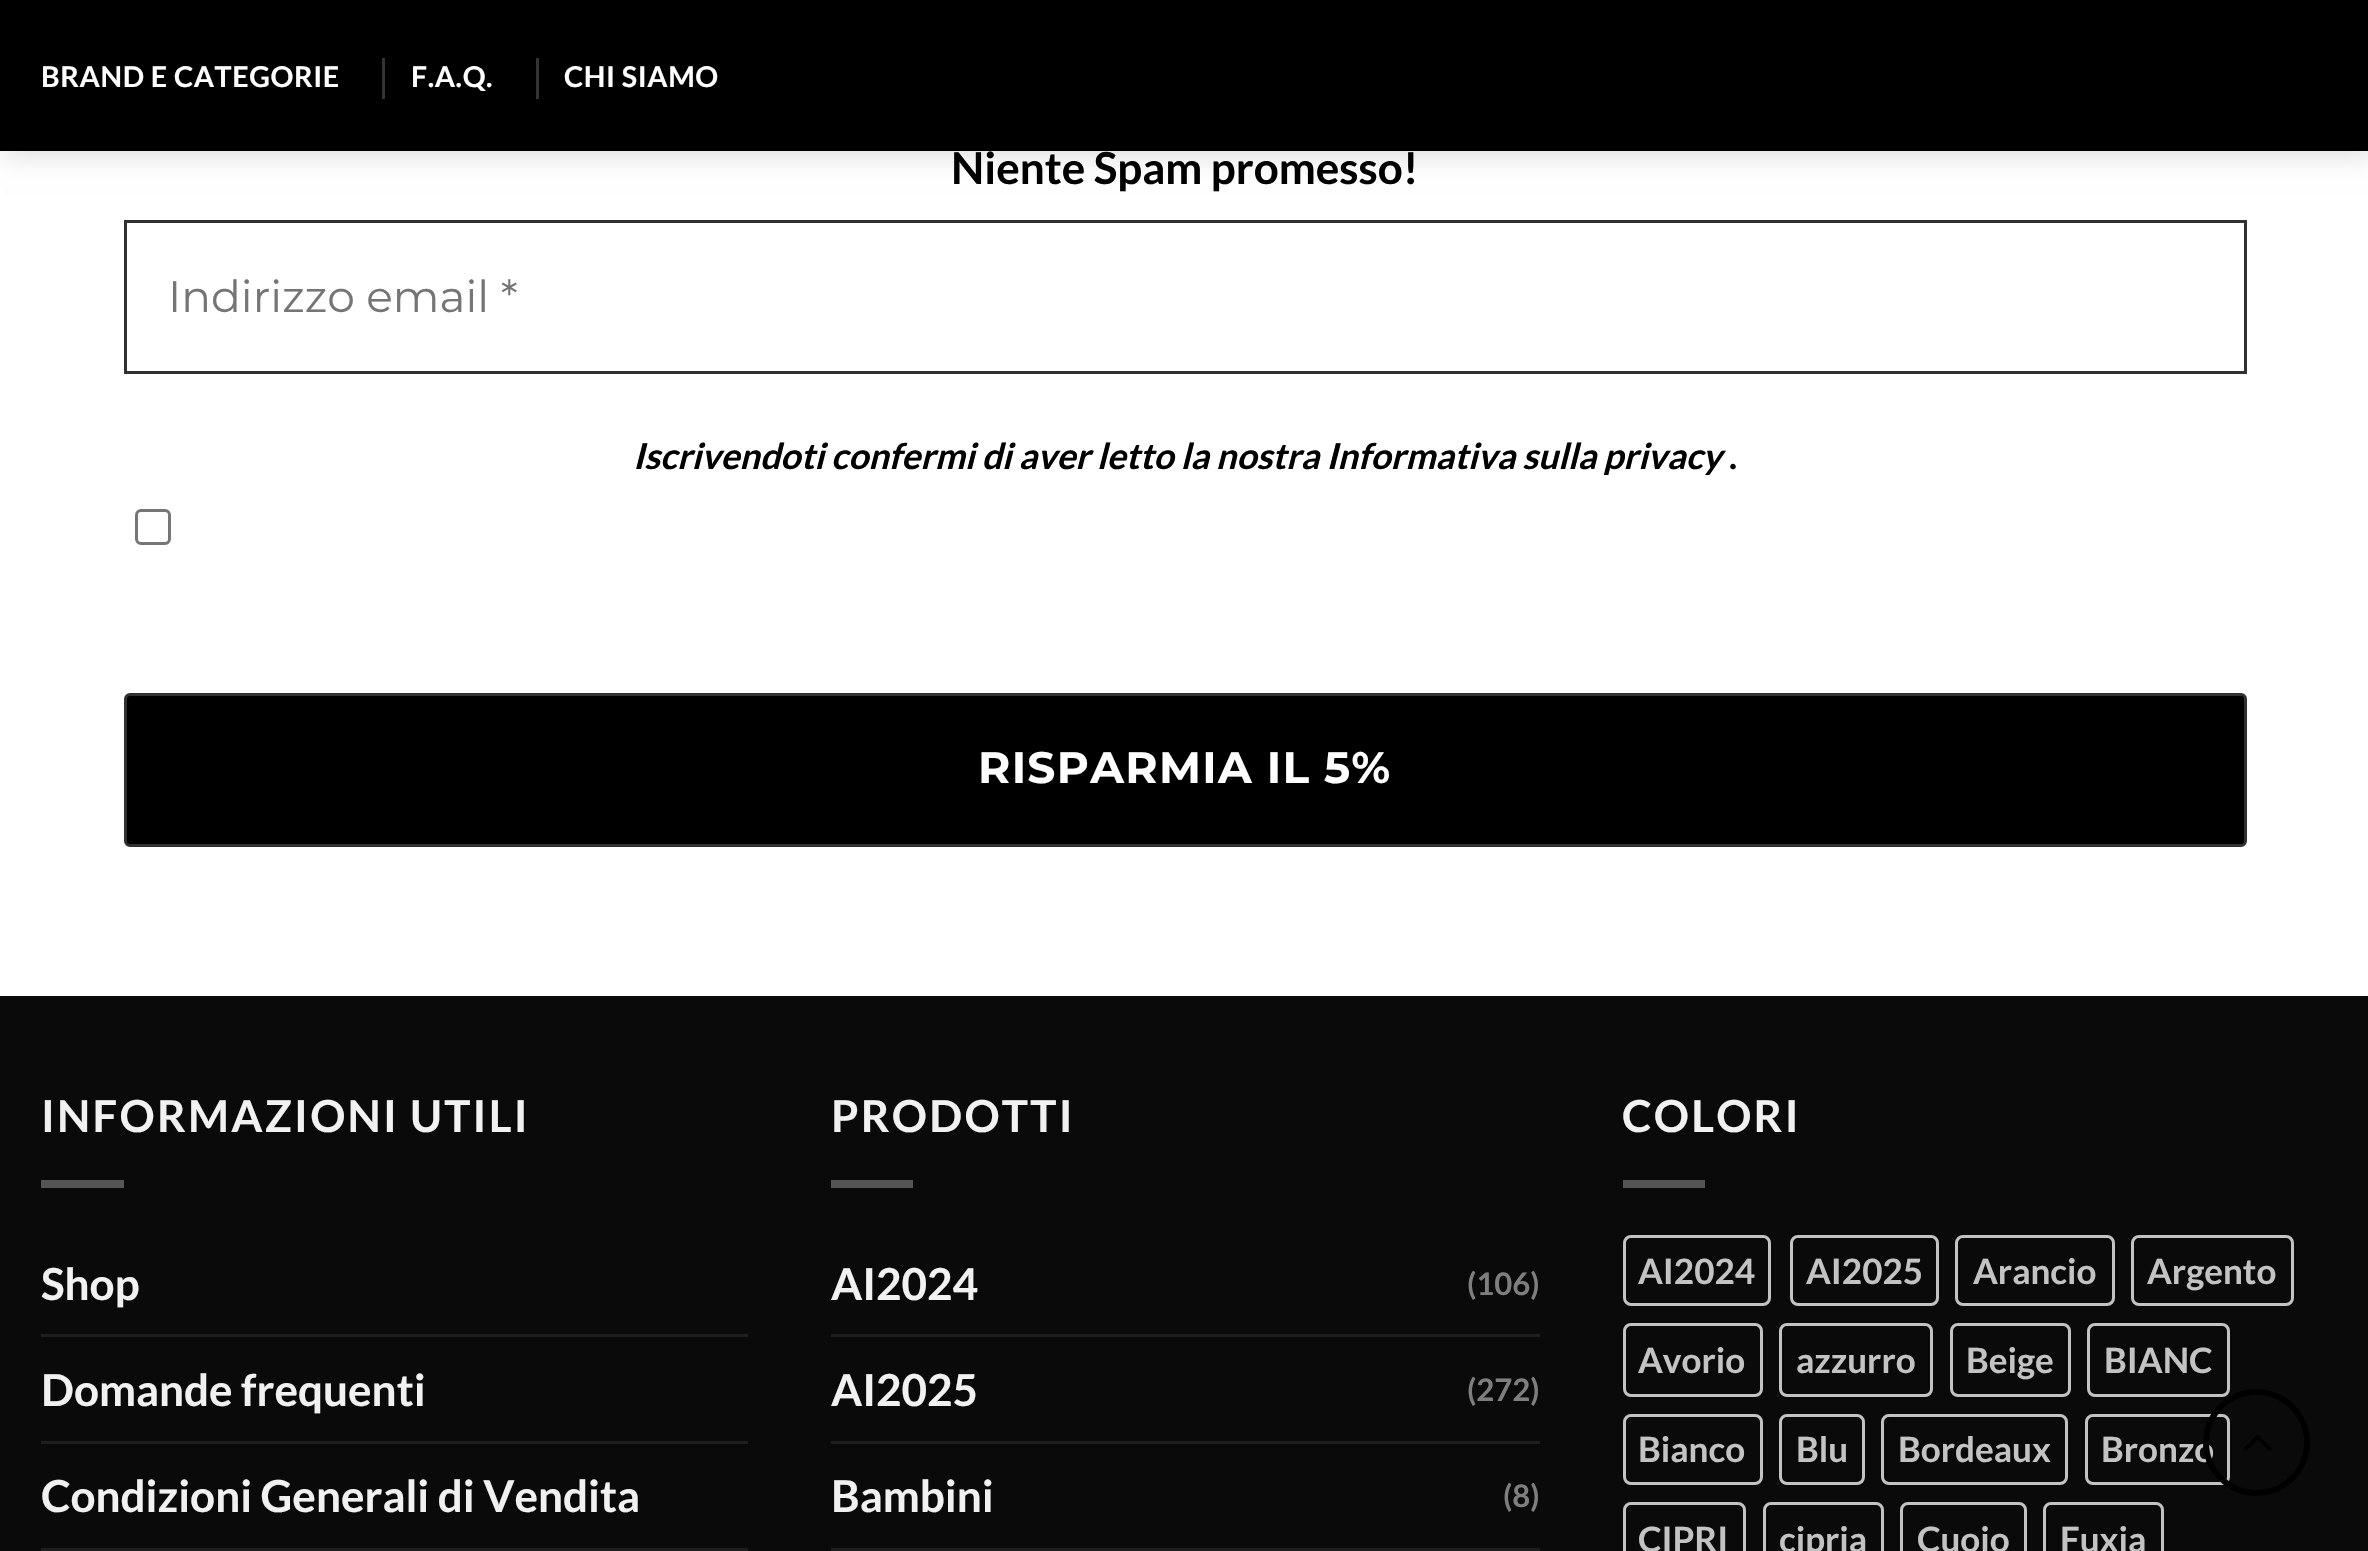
static SkFont makeFont(const char* family, int weight, float size, bool italic = false) {
  SkFontStyle style(weight, SkFontStyle::kNormal_Width,
    italic ? SkFontStyle::kItalic_Slant : SkFontStyle::kUpright_Slant);
  SkFont result(fontMgr->matchFamilyStyle(family, style), size);
  result.setSubpixel(true);
  return result;
}

static void text(SkCanvas* c, const char* s, float x, float y, const SkFont& font, SkColor color) {
  SkPaint ink(SkColor4f::FromColor(color));
  ink.setAntiAlias(true);
  c->drawString(s, x, y, font, ink);
}

static void spacedText(SkCanvas* c, const char* s, float x, float y, const SkFont& font, const SkPaint& ink, float letter, float word) {
  std::vector<SkGlyphID> glyphs(font.countText(s, strlen(s), SkTextEncoding::kUTF8));
  std::vector<float> xs(glyphs.size());
  font.textToGlyphs(s, strlen(s), SkTextEncoding::kUTF8, glyphs);
  font.getXPos(glyphs, xs, x);
  float extra = 0;
  for (size_t i = 0; i < glyphs.size(); i++) {
    xs[i] += extra;
    extra += letter + word * (glyphs[i] == font.unicharToGlyph(' '));
  }
  c->drawTextBlob(SkTextBlob::MakeFromPosHGlyphs(glyphs, xs, y, font), 0, 0, ink);
}

static void box(SkCanvas* c, float l, float t, float r, float b, SkColor color) {
  SkPaint ink(SkColor4f::FromColor(color));
  ink.setAntiAlias(true);
  c->drawRect(SkRect::MakeLTRB(l, t, r, b), ink);
}

static void picture(SkCanvas* c, const char* path, float l, float t, float r, float b) {
  auto image = SkImages::DeferredFromEncodedData(SkData::MakeFromFileName(path));
  c->drawImageRect(image, SkRect::MakeLTRB(l, t, r, b), SkSamplingOptions());
}

void draw(SkCanvas* c) {
  SkPaint paint;
  paint.setAntiAlias(true);
  c->clear(0xffffffff);
  paint.setColor(0x26000000);
  paint.setMaskFilter(SkMaskFilter::MakeBlur(kNormal_SkBlurStyle, 14));
  c->drawRect(SkRect::MakeLTRB(3, 3, 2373, 154), paint);
  paint.setMaskFilter(nullptr);
  box(c, 0, 0, 2368, 151, 0xff000000);
  SkFont face1 = makeFont("Lato", 700, 28.6f);
  paint.setColor(0xffffffff);
  spacedText(c, "BRAND E CATEGORIE", 41, 87, face1, paint, 0.6f, 0);
  box(c, 382, 58, 385, 99, 0xff333333);
  spacedText(c, "F.A.Q.", 411, 87, face1, paint, 0.6f, 0);
  box(c, 536, 58, 539, 99, 0xff333333);
  spacedText(c, "CHI SIAMO", 564, 87, face1, paint, 0.6f, 0);
  SkFont face2 = makeFont("Lato", 700, 44);
  text(c, "Niente Spam promesso!", 951, 184, face2, 0xff000000);
  paint.setStyle(SkPaint::kStroke_Style);
  paint.setStrokeWidth(3);
  paint.setColor(0xff313131);
  c->drawRect(SkRect::MakeLTRB(125.5f, 221.5f, 2245.5f, 372.5f), paint);
  SkFont face3 = makeFont("Montserrat", 400, 44);
  text(c, "Indirizzo email *", 168, 312, face3, 0xff757575);
  SkFont face4 = makeFont("Lato", 700, 35.75f, true);
  text(c, "Iscrivendoti confermi di aver letto la nostra Informativa sulla privacy", 633, 469, face4, 0xff000000);
  SkFont face5 = makeFont("Lato", 700, 35.75f);
  text(c, ".", 1729, 469, face5, 0xff000000);
  paint.setColor(0xff767676);
  c->drawRoundRect(SkRect::MakeLTRB(136.5f, 510.5f, 169.5f, 543.5f), 4.5f, 4.5f, paint);
  paint.setStyle(SkPaint::kFill_Style);
  paint.setColor(0xff000000);
  c->drawRoundRect(SkRect::MakeLTRB(125.5f, 694.5f, 2245.5f, 845.5f), 4.5f, 4.5f, paint);
  paint.setStyle(SkPaint::kStroke_Style);
  paint.setColor(0xff313131);
  c->drawRoundRect(SkRect::MakeLTRB(125.5f, 694.5f, 2245.5f, 845.5f), 4.5f, 4.5f, paint);
  SkFont face6 = makeFont("Montserrat", 700, 44);
  paint.setStyle(SkPaint::kFill_Style);
  paint.setColor(0xffffffff);
  spacedText(c, "RISPARMIA IL 5%", 978, 783, face6, paint, 1.3f, 0);
  box(c, 0, 996, 2368, 1551, 0xff0a0a0a);
  paint.setColor(0xfff1f1f1);
  spacedText(c, "INFORMAZIONI UTILI", 41, 1132, face2, paint, 2.25f, 0);
  box(c, 41, 1180, 124, 1188, 0xff545454);
  text(c, "Shop", 41, 1300, face2, 0xfff1f1f1);
  box(c, 41, 1334, 748, 1337, 0xff1e1e1e);
  text(c, "Domande frequenti", 41, 1406, face2, 0xfff1f1f1);
  box(c, 41, 1441, 748, 1444, 0xff1e1e1e);
  text(c, "Condizioni Generali di Vendita", 41, 1512, face2, 0xfff1f1f1);
  box(c, 41, 1548, 748, 1551, 0xff1e1e1e);
  spacedText(c, "PRODOTTI", 831, 1132, face2, paint, 2.25f, 0);
  box(c, 831, 1180, 913, 1188, 0xff545454);
  text(c, "AI2024", 831, 1300, face2, 0xfff1f1f1);
  SkFont face7 = makeFont("Lato", 700, 31);
  text(c, "(106)", 1467, 1295, face7, 0xff7e7e7e);
  box(c, 831, 1334, 1540, 1337, 0xff1e1e1e);
  text(c, "AI2025", 831, 1406, face2, 0xfff1f1f1);
  text(c, "(272)", 1467, 1401, face7, 0xff7e7e7e);
  box(c, 831, 1441, 1540, 1444, 0xff1e1e1e);
  text(c, "Bambini", 831, 1512, face2, 0xfff1f1f1);
  text(c, "(8)", 1503, 1507, face7, 0xff7e7e7e);
  box(c, 831, 1548, 1540, 1551, 0xff1e1e1e);
  spacedText(c, "COLORI", 1622, 1132, face2, paint, 2.25f, 0);
  box(c, 1623, 1180, 1705, 1188, 0xff545454);
  paint.setStyle(SkPaint::kStroke_Style);
  paint.setColor(0xffc3c3c3);
  c->drawRoundRect(SkRect::MakeLTRB(1624.5f, 1236.5f, 1769.5f, 1304.5f), 6.5f, 6.5f, paint);
  SkFont face8 = makeFont("Lato", 700, 35);
  text(c, "AI2024", 1638, 1284, face8, 0xffc3c3c3);
  c->drawRoundRect(SkRect::MakeLTRB(1791.5f, 1236.5f, 1937.5f, 1304.5f), 6.5f, 6.5f, paint);
  text(c, "AI2025", 1806, 1284, face8, 0xffc3c3c3);
  c->drawRoundRect(SkRect::MakeLTRB(1956.5f, 1236.5f, 2113.5f, 1304.5f), 6.5f, 6.5f, paint);
  text(c, "Arancio", 1973, 1284, face8, 0xffc3c3c3);
  c->drawRoundRect(SkRect::MakeLTRB(2132.5f, 1236.5f, 2292.5f, 1304.5f), 6.5f, 6.5f, paint);
  text(c, "Argento", 2147, 1284, face8, 0xffc3c3c3);
  c->drawRoundRect(SkRect::MakeLTRB(1624.5f, 1324.5f, 1761.5f, 1395.5f), 6.5f, 6.5f, paint);
  text(c, "Avorio", 1638, 1373, face8, 0xffc3c3c3);
  c->drawRoundRect(SkRect::MakeLTRB(1780.5f, 1324.5f, 1931.5f, 1395.5f), 6.5f, 6.5f, paint);
  text(c, "azzurro", 1796, 1373, face8, 0xffc3c3c3);
  c->drawRoundRect(SkRect::MakeLTRB(1951.5f, 1324.5f, 2069.5f, 1395.5f), 6.5f, 6.5f, paint);
  text(c, "Beige", 1966, 1373, face8, 0xffc3c3c3);
  c->drawRoundRect(SkRect::MakeLTRB(2088.5f, 1324.5f, 2228.5f, 1395.5f), 6.5f, 6.5f, paint);
  text(c, "BIANC", 2104, 1373, face8, 0xffc3c3c3);
  c->drawRoundRect(SkRect::MakeLTRB(1624.5f, 1415.5f, 1761.5f, 1483.5f), 6.5f, 6.5f, paint);
  text(c, "Bianco", 1638, 1462, face8, 0xffc3c3c3);
  c->drawRoundRect(SkRect::MakeLTRB(1780.5f, 1415.5f, 1863.5f, 1483.5f), 6.5f, 6.5f, paint);
  text(c, "Blu", 1796, 1462, face8, 0xffc3c3c3);
  c->drawRoundRect(SkRect::MakeLTRB(1882.5f, 1415.5f, 2066.5f, 1483.5f), 6.5f, 6.5f, paint);
  text(c, "Bordeaux", 1898, 1462, face8, 0xffc3c3c3);
  c->drawRoundRect(SkRect::MakeLTRB(2086.5f, 1415.5f, 2228.5f, 1483.5f), 6.5f, 6.5f, paint);
  text(c, "Bronzo", 2101, 1462, face8, 0xffc3c3c3);
  c->drawRoundRect(SkRect::MakeLTRB(1624.5f, 1503.5f, 1744.5f, 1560.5f), 6.5f, 6.5f, paint);
  text(c, "CIPRI", 1638, 1552, face8, 0xffc3c3c3);
  c->drawRoundRect(SkRect::MakeLTRB(1764.5f, 1503.5f, 1882.5f, 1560.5f), 6.5f, 6.5f, paint);
  text(c, "cipria", 1779, 1552, face8, 0xffc3c3c3);
  c->drawRoundRect(SkRect::MakeLTRB(1901.5f, 1503.5f, 2025.5f, 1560.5f), 6.5f, 6.5f, paint);
  text(c, "Cuoio", 1917, 1552, face8, 0xffc3c3c3);
  c->drawRoundRect(SkRect::MakeLTRB(2044.5f, 1503.5f, 2162.5f, 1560.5f), 6.5f, 6.5f, paint);
  text(c, "Fuxia", 2060, 1552, face8, 0xffc3c3c3);
  paint.setStrokeWidth(6);
  paint.setColor(0xff000000);
  c->drawCircle(2256.5f, 1442.5f, 50.5f, paint);
  picture(c, "img_01.png", 2243, 1435, 2272, 1451);
}
